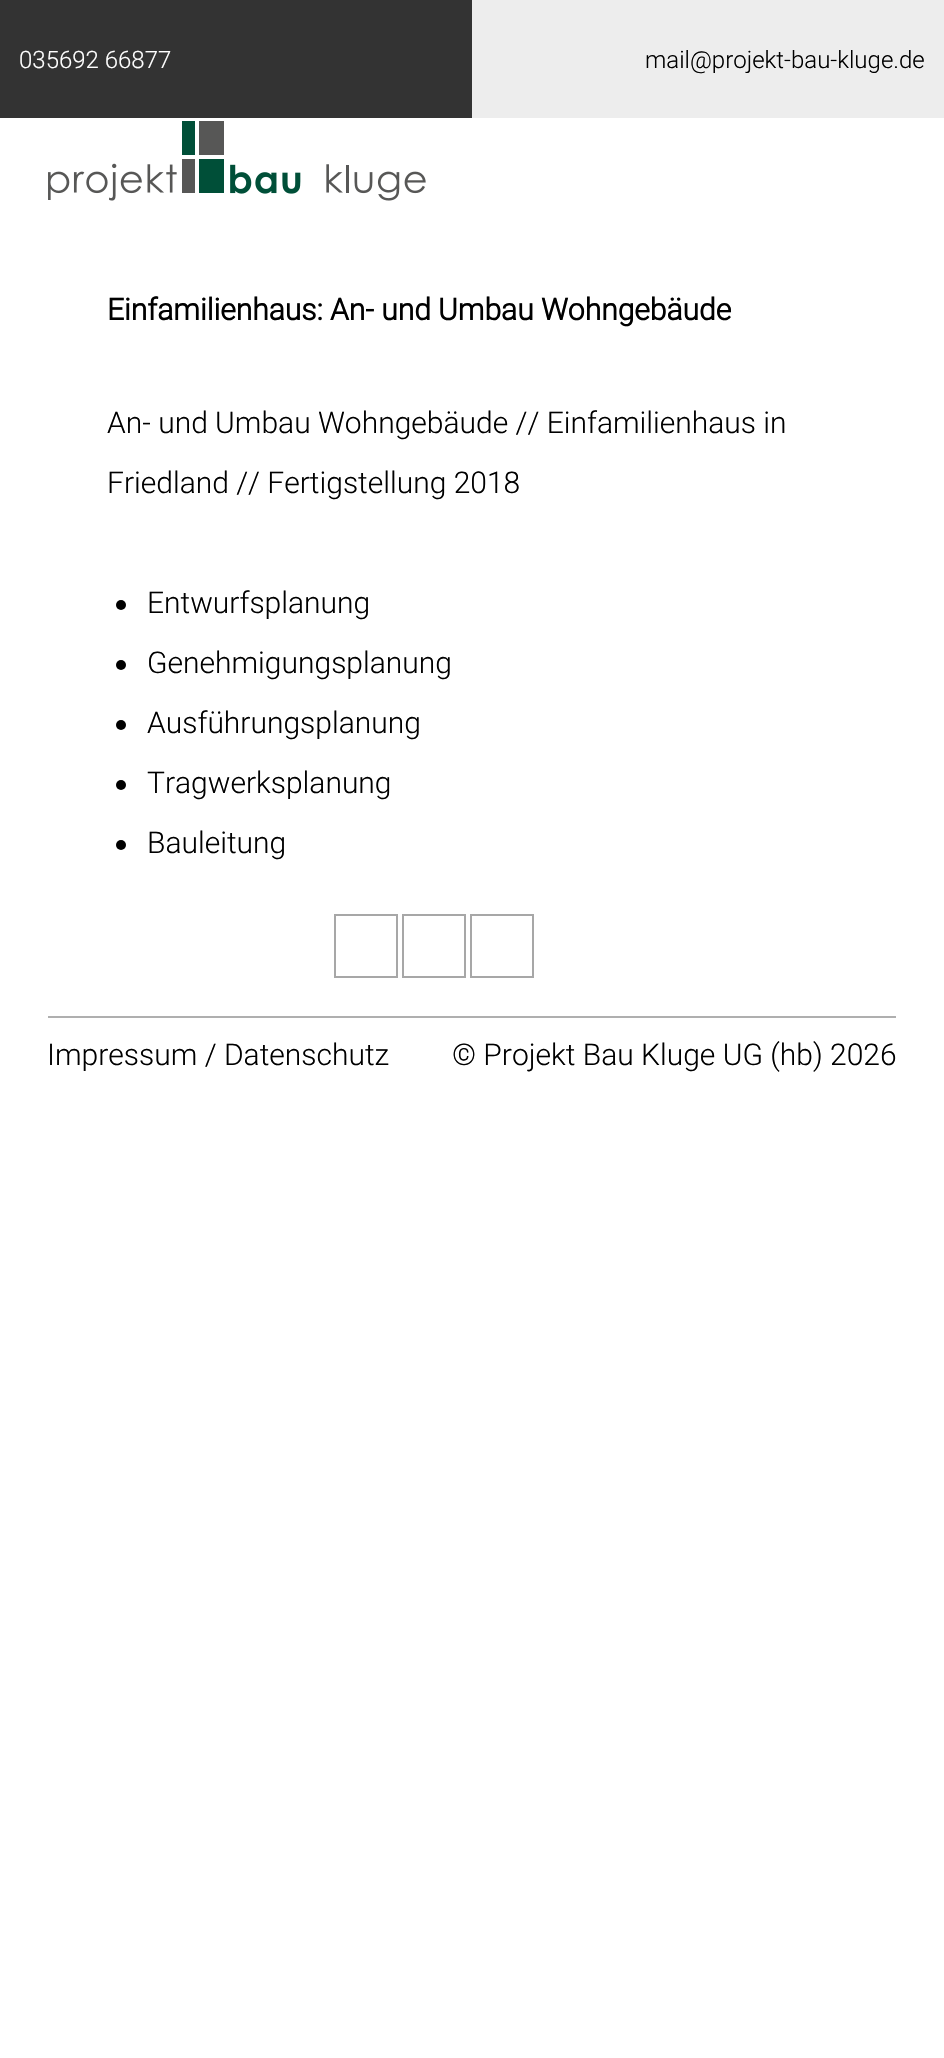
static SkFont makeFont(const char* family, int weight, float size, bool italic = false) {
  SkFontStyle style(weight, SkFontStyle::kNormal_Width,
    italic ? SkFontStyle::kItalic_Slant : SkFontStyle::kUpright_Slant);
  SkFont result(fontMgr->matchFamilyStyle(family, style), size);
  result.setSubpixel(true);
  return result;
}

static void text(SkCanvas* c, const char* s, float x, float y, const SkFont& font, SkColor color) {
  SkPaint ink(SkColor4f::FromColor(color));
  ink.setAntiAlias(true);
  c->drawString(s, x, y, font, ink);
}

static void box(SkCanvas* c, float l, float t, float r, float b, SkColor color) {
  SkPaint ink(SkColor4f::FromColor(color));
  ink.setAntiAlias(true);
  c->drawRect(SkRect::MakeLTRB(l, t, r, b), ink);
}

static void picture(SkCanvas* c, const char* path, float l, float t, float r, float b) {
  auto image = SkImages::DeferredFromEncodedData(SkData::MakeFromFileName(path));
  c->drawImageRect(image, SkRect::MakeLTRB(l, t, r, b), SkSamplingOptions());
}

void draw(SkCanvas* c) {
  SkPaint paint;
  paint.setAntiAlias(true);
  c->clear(0xffffffff);
  box(c, 0, 0, 472, 118, 0xff333333);
  SkFont face1 = makeFont("Roboto", 300, 24);
  text(c, "035692 66877", 19, 68, face1, 0xffffffff);
  box(c, 472, 0, 944, 118, 0xffededed);
  text(c, "mail@projekt-bau-kluge.de", 645, 68, face1, 0xff000000);
  picture(c, "img_01.png", 48, 121, 426, 201);
  SkFont face2 = makeFont("Roboto", 700, 30);
  text(c, "Einfamilienhaus: An- und Umbau Wohngebäude", 107, 320, face2, 0xff000000);
  SkFont face3 = makeFont("Roboto", 300, 30);
  text(c, "An- und Umbau Wohngebäude // Einfamilienhaus in", 107, 433, face3, 0xff000000);
  text(c, "Friedland // Fertigstellung 2018", 107, 493, face3, 0xff000000);
  paint.setColor(0xff000000);
  c->drawCircle(121, 605, 5, paint);
  text(c, "Entwurfsplanung", 147, 613, face3, 0xff000000);
  c->drawCircle(121, 665, 5, paint);
  text(c, "Genehmigungsplanung", 147, 673, face3, 0xff000000);
  c->drawCircle(121, 725, 5, paint);
  text(c, "Ausführungsplanung", 147, 733, face3, 0xff000000);
  c->drawCircle(121, 785, 5, paint);
  text(c, "Tragwerksplanung", 147, 793, face3, 0xff000000);
  c->drawCircle(121, 845, 5, paint);
  text(c, "Bauleitung", 147, 853, face3, 0xff000000);
  paint.setStyle(SkPaint::kStroke_Style);
  paint.setStrokeWidth(2);
  paint.setColor(0xffa7a7a7);
  c->drawRect(SkRect::MakeLTRB(335, 915, 397, 977), paint);
  c->drawRect(SkRect::MakeLTRB(403, 915, 465, 977), paint);
  c->drawRect(SkRect::MakeLTRB(471, 915, 533, 977), paint);
  box(c, 48, 1016, 896, 1018, 0xffafafaf);
  text(c, "Impressum / Datenschutz", 47, 1065, face3, 0xff000000);
  text(c, "© Projekt Bau Kluge UG (hb) 2026", 452, 1065, face3, 0xff000000);
}
